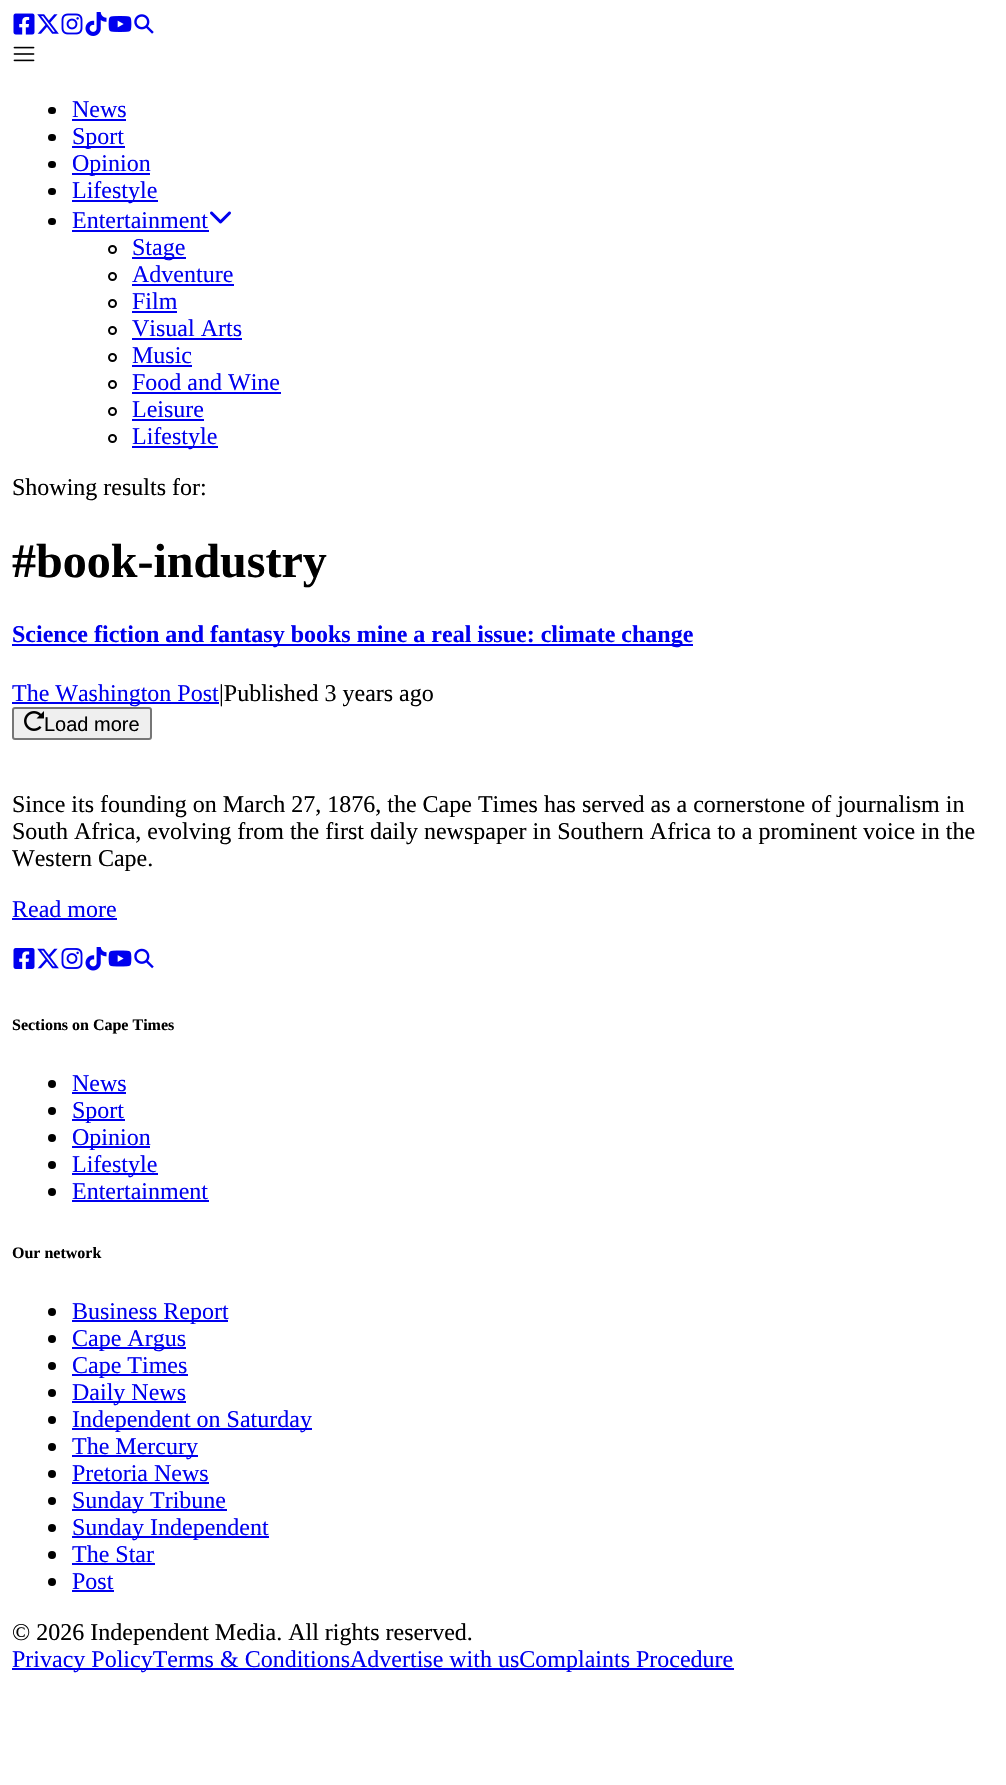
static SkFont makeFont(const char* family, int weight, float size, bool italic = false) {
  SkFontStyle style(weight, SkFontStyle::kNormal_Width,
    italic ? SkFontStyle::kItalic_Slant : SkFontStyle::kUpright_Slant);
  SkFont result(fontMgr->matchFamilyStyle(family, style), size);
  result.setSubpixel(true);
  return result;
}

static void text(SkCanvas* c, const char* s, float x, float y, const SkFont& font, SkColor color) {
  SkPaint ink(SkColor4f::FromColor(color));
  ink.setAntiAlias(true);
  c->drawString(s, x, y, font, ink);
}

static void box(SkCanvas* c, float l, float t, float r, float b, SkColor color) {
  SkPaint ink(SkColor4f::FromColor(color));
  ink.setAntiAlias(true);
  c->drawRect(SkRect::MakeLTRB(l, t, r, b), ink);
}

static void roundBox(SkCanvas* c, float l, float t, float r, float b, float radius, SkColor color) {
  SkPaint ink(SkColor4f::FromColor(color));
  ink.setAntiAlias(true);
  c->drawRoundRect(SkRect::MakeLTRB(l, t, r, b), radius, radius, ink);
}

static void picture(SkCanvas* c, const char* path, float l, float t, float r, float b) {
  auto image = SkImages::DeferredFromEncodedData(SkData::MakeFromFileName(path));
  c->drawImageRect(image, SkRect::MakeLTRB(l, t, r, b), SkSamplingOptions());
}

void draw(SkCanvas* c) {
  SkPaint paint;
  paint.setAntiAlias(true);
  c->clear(0xffffffff);
  picture(c, "img_01.png", 13, 13, 35, 35);
  picture(c, "img_02.png", 37, 14, 59, 34);
  picture(c, "img_03.png", 61, 13, 83, 35);
  picture(c, "img_04.png", 85, 12, 107, 36);
  picture(c, "img_05.png", 108, 16, 132, 32);
  picture(c, "img_06.png", 134, 14, 154, 34);
  picture(c, "img_07.png", 13, 46, 35, 62);
  roundBox(c, 48, 107, 56, 114, 3.5f, 0xff000000);
  SkFont face1 = makeFont("Liberation Serif", 400, 24);
  text(c, "News", 72, 117, face1, 0xff0000ee);
  box(c, 72, 119, 126, 121, 0xff0000ee);
  roundBox(c, 48, 134, 56, 141, 3.5f, 0xff000000);
  box(c, 72, 146, 125, 148, 0xff0000ee);
  text(c, "Sport", 72, 144, face1, 0xff0000ee);
  roundBox(c, 48, 161, 56, 168, 3.5f, 0xff000000);
  box(c, 72, 173, 150, 175, 0xff0000ee);
  text(c, "Opinion", 72, 171, face1, 0xff0000ee);
  roundBox(c, 48, 188, 56, 195, 3.5f, 0xff000000);
  box(c, 72, 200, 158, 202, 0xff0000ee);
  text(c, "Lifestyle", 72, 198, face1, 0xff0000ee);
  roundBox(c, 48, 218, 56, 225, 3.5f, 0xff000000);
  text(c, "Entertainment", 72, 228, face1, 0xff0000ee);
  box(c, 72, 230, 209, 232, 0xff0000ee);
  picture(c, "img_08.png", 210, 211, 231, 224);
  paint.setStyle(SkPaint::kStroke_Style);
  paint.setStrokeWidth(2);
  paint.setColor(0xff000000);
  c->drawCircle(112.5f, 249.5f, 3.5f, paint);
  box(c, 132, 257, 186, 259, 0xff0000ee);
  text(c, "Stage", 132, 255, face1, 0xff0000ee);
  c->drawCircle(112.5f, 276.5f, 3.5f, paint);
  text(c, "Adventure", 132, 282, face1, 0xff0000ee);
  box(c, 132, 284, 234, 286, 0xff0000ee);
  c->drawCircle(112.5f, 303.5f, 3.5f, paint);
  text(c, "Film", 132, 309, face1, 0xff0000ee);
  box(c, 132, 311, 177, 313, 0xff0000ee);
  c->drawCircle(112.5f, 330.5f, 3.5f, paint);
  text(c, "Visual Arts", 132, 336, face1, 0xff0000ee);
  box(c, 132, 338, 242, 340, 0xff0000ee);
  c->drawCircle(112.5f, 357.5f, 3.5f, paint);
  text(c, "Music", 132, 363, face1, 0xff0000ee);
  box(c, 132, 365, 192, 367, 0xff0000ee);
  c->drawCircle(112.5f, 384.5f, 3.5f, paint);
  text(c, "Food and Wine", 132, 390, face1, 0xff0000ee);
  box(c, 132, 392, 281, 394, 0xff0000ee);
  c->drawCircle(112.5f, 411.5f, 3.5f, paint);
  text(c, "Leisure", 132, 417, face1, 0xff0000ee);
  box(c, 132, 419, 204, 421, 0xff0000ee);
  c->drawCircle(112.5f, 438.5f, 3.5f, paint);
  box(c, 132, 446, 218, 448, 0xff0000ee);
  text(c, "Lifestyle", 132, 444, face1, 0xff0000ee);
  text(c, "Showing results for:", 12, 495, face1, 0xff000000);
  SkFont face2 = makeFont("Liberation Serif", 700, 48);
  text(c, "#book-industry", 12, 577, face2, 0xff000000);
  box(c, 12, 644, 693, 646, 0xff0000ee);
  SkFont face3 = makeFont("Liberation Serif", 700, 24);
  text(c, "Science fiction and fantasy books mine a real issue: climate change", 12, 642, face3, 0xff0000ee);
  box(c, 12, 702, 219, 704, 0xff0000ee);
  text(c, "The Washington Post", 12, 701, face1, 0xff0000ee);
  text(c, "|Published 3 years ago", 219, 701, face1, 0xff000000);
  paint.setStyle(SkPaint::kFill_Style);
  paint.setColor(0xffefefef);
  c->drawRoundRect(SkRect::MakeLTRB(13, 708, 151, 739), 2, 2, paint);
  paint.setStyle(SkPaint::kStroke_Style);
  paint.setColor(0xff767676);
  c->drawRoundRect(SkRect::MakeLTRB(13, 708, 151, 739), 2, 2, paint);
  picture(c, "img_09.png", 24, 711, 44, 731);
  SkFont face4 = makeFont("Liberation Sans", 400, 20);
  text(c, "Load more", 44, 731, face4, 0xff000000);
  text(c, "Since its founding on March 27, 1876, the Cape Times has served as a cornerstone of journalism in", 12, 812, face1, 0xff000000);
  text(c, "South Africa, evolving from the first daily newspaper in Southern Africa to a prominent voice in the", 12, 839, face1, 0xff000000);
  text(c, "Western Cape.", 12, 866, face1, 0xff000000);
  text(c, "Read more", 12, 917, face1, 0xff0000ee);
  box(c, 12, 918, 117, 920, 0xff0000ee);
  picture(c, "img_10.png", 13, 948, 35, 969);
  picture(c, "img_11.png", 37, 948, 59, 969);
  picture(c, "img_12.png", 61, 948, 83, 969);
  picture(c, "img_13.png", 85, 947, 107, 971);
  picture(c, "img_14.png", 108, 950, 132, 967);
  picture(c, "img_15.png", 134, 948, 154, 969);
  SkFont face5 = makeFont("Liberation Serif", 700, 16);
  text(c, "Sections on Cape Times", 12, 1030, face5, 0xff000000);
  paint.setStyle(SkPaint::kFill_Style);
  paint.setColor(0xff000000);
  c->drawCircle(52, 1084, 4, paint);
  text(c, "News", 72, 1091, face1, 0xff0000ee);
  box(c, 72, 1092, 126, 1094, 0xff0000ee);
  c->drawCircle(52, 1111, 4, paint);
  box(c, 72, 1119, 125, 1121, 0xff0000ee);
  text(c, "Sport", 72, 1118, face1, 0xff0000ee);
  c->drawCircle(52, 1138, 4, paint);
  box(c, 72, 1146, 150, 1148, 0xff0000ee);
  text(c, "Opinion", 72, 1145, face1, 0xff0000ee);
  c->drawCircle(52, 1165, 4, paint);
  box(c, 72, 1173, 158, 1175, 0xff0000ee);
  text(c, "Lifestyle", 72, 1172, face1, 0xff0000ee);
  c->drawCircle(52, 1192, 4, paint);
  text(c, "Entertainment", 72, 1199, face1, 0xff0000ee);
  box(c, 72, 1200, 209, 1202, 0xff0000ee);
  text(c, "Our network", 12, 1258, face5, 0xff000000);
  c->drawCircle(52, 1312, 4, paint);
  box(c, 72, 1320, 228, 1322, 0xff0000ee);
  text(c, "Business Report", 72, 1319, face1, 0xff0000ee);
  c->drawCircle(52, 1339, 4, paint);
  box(c, 72, 1347, 186, 1349, 0xff0000ee);
  text(c, "Cape Argus", 72, 1346, face1, 0xff0000ee);
  c->drawCircle(52, 1366, 4, paint);
  box(c, 72, 1374, 188, 1376, 0xff0000ee);
  text(c, "Cape Times", 72, 1373, face1, 0xff0000ee);
  c->drawCircle(52, 1393, 4, paint);
  box(c, 72, 1401, 186, 1403, 0xff0000ee);
  text(c, "Daily News", 72, 1400, face1, 0xff0000ee);
  c->drawCircle(52, 1420, 4, paint);
  box(c, 72, 1428, 312, 1430, 0xff0000ee);
  text(c, "Independent on Saturday", 72, 1427, face1, 0xff0000ee);
  c->drawCircle(52, 1447, 4, paint);
  box(c, 72, 1455, 198, 1457, 0xff0000ee);
  text(c, "The Mercury", 72, 1454, face1, 0xff0000ee);
  c->drawCircle(52, 1474, 4, paint);
  text(c, "Pretoria News", 72, 1481, face1, 0xff0000ee);
  box(c, 72, 1482, 209, 1484, 0xff0000ee);
  c->drawCircle(52, 1501, 4, paint);
  box(c, 72, 1509, 227, 1511, 0xff0000ee);
  text(c, "Sunday Tribune", 72, 1508, face1, 0xff0000ee);
  c->drawCircle(52, 1528, 4, paint);
  box(c, 72, 1536, 269, 1538, 0xff0000ee);
  text(c, "Sunday Independent", 72, 1535, face1, 0xff0000ee);
  c->drawCircle(52, 1555, 4, paint);
  text(c, "The Star", 72, 1562, face1, 0xff0000ee);
  box(c, 72, 1563, 155, 1565, 0xff0000ee);
  c->drawCircle(52, 1582, 4, paint);
  text(c, "Post", 72, 1589, face1, 0xff0000ee);
  box(c, 72, 1590, 114, 1592, 0xff0000ee);
  text(c, "© 2026 Independent Media. All rights reserved.", 12, 1640, face1, 0xff000000);
  box(c, 12, 1668, 734, 1670, 0xff0000ee);
  text(c, "Privacy PolicyTerms & ConditionsAdvertise with usComplaints Procedure", 12, 1667, face1, 0xff0000ee);
}
